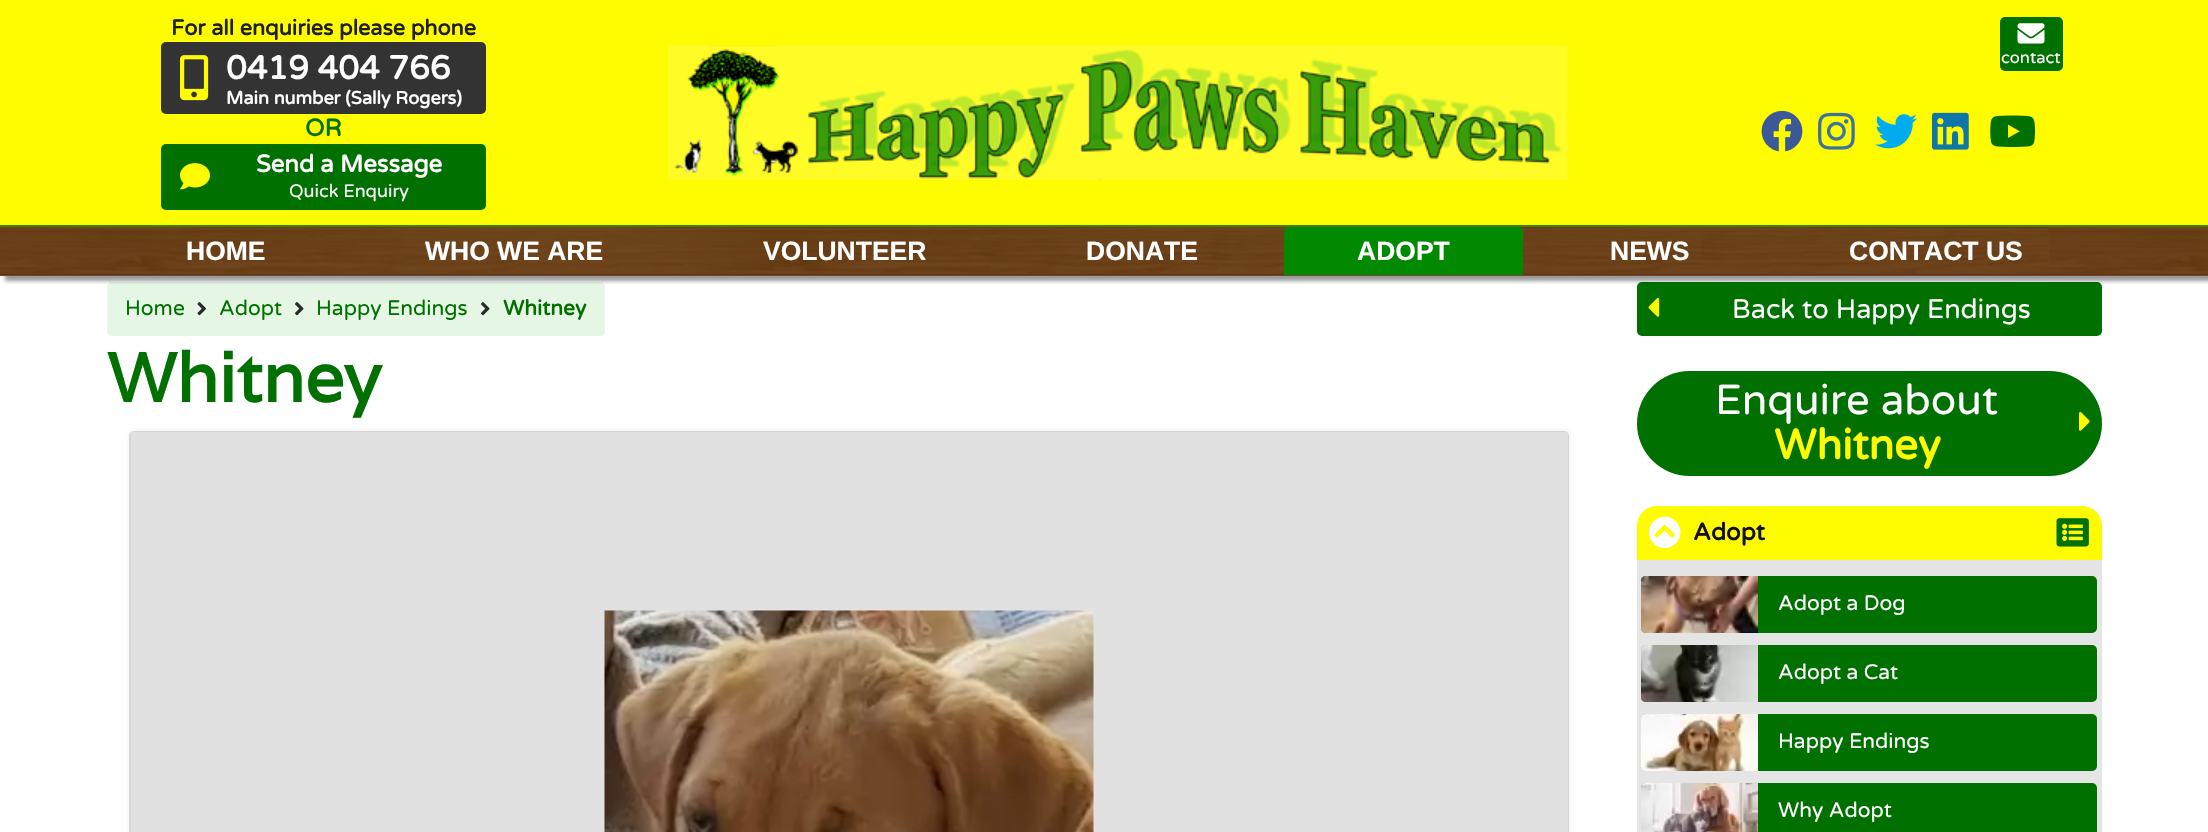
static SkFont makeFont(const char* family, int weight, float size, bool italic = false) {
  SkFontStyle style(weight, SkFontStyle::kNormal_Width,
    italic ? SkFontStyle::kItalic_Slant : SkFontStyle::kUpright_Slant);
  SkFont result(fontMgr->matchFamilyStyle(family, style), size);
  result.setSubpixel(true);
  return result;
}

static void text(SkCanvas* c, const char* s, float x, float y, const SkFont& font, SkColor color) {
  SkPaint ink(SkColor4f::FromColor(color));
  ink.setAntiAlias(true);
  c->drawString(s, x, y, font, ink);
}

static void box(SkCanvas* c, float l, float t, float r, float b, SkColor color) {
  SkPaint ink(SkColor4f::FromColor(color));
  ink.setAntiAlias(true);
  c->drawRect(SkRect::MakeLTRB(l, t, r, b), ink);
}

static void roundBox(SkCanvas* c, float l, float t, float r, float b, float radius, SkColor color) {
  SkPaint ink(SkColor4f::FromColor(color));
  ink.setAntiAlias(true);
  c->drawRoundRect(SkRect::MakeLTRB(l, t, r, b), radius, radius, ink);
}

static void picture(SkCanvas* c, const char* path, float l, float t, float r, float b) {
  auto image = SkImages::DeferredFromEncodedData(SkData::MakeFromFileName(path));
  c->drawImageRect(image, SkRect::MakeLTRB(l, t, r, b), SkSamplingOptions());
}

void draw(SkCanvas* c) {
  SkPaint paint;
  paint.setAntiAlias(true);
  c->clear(0xffffffff);
  box(c, 0, 275, 2208, 276, 0xff6f4a29);
  box(c, 0, 274, 2208, 275, 0xff62311c);
  picture(c, "img_10.png", 0, 227, 2208, 274);
  roundBox(c, 107, 282, 605, 336, 5, 0xffe5f6e5);
  roundBox(c, 1637, 282, 2102, 336, 5, 0xff007000);
  c->save();
  c->clipRect(SkRect::MakeLTRB(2, 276, 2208, 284));
  paint.setColor(0x66000000);
  paint.setMaskFilter(SkMaskFilter::MakeBlur(kNormal_SkBlurStyle, 2));
  c->drawRect(SkRect::MakeLTRB(5, 231, 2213, 281), paint);
  paint.setMaskFilter(nullptr);
  c->restore();
  box(c, 0, 0, 2208, 225, 0xfffffb01);
  box(c, 0, 225, 2208, 227, 0xff3f8100);
  SkFont face1 = makeFont("Varela Round", 700, 21.6f);
  text(c, "For all enquiries please phone", 171, 35, face1, 0xff1f1f1f);
  roundBox(c, 161, 42, 486, 114, 5, 0xff333333);
  picture(c, "img_01.png", 180, 55, 209, 101);
  SkFont face2 = makeFont("Varela Round", 700, 33);
  text(c, "0419 404 766", 226, 79, face2, 0xffffffff);
  SkFont face3 = makeFont("Varela Round", 700, 18);
  text(c, "Main number (Sally Rogers)", 226, 104, face3, 0xffffffff);
  SkFont face4 = makeFont("Varela Round", 700, 24);
  text(c, "OR", 305, 136, face4, 0xff007000);
  roundBox(c, 161, 144, 486, 210, 5, 0xff007000);
  picture(c, "img_02.png", 180, 163, 210, 190);
  text(c, "Send a Message", 256, 172, face4, 0xffffffff);
  SkFont face5 = makeFont("Varela Round", 400, 18);
  text(c, "Quick Enquiry", 289, 197, face5, 0xffffffff);
  picture(c, "img_03.png", 668, 45, 1568, 180);
  roundBox(c, 2000, 17, 2063, 71, 5, 0xff007000);
  picture(c, "img_04.png", 2017, 23, 2045, 44);
  SkFont face6 = makeFont("Varela Round", 400, 16.5f);
  text(c, "contact", 2001, 63, face6, 0xffffffff);
  picture(c, "img_05.png", 1761, 110, 1803, 152);
  picture(c, "img_06.png", 1818, 112, 1855, 150);
  picture(c, "img_07.png", 1875, 114, 1917, 149);
  picture(c, "img_08.png", 1932, 112, 1969, 150);
  picture(c, "img_09.png", 1990, 115, 2035, 147);
  SkFont face7 = makeFont("Liberation Sans", 700, 26.5f);
  text(c, "HOME", 186, 260, face7, 0xffffffff);
  text(c, "WHO WE ARE", 425, 260, face7, 0xffffffff);
  text(c, "VOLUNTEER", 763, 260, face7, 0xffffffff);
  text(c, "DONATE", 1086, 260, face7, 0xffffffff);
  paint.setColor(0xff018901);
  c->drawPath(SkPathBuilder().moveTo(1289, 227).lineTo(1518, 227).cubicTo(1521, 227, 1523, 229, 1523, 232).lineTo(1523, 275).lineTo(1284, 275).lineTo(1284, 232).cubicTo(1284, 229, 1286, 227, 1289, 227).close().detach(), paint);
  text(c, "ADOPT", 1357, 260, face7, 0xffffffff);
  text(c, "NEWS", 1610, 260, face7, 0xffffffff);
  text(c, "CONTACT US", 1849, 260, face7, 0xffffffff);
  SkFont face8 = makeFont("Varela Round", 400, 21);
  text(c, "Home", 125, 315, face8, 0xff007000);
  picture(c, "img_11.png", 197, 302, 206, 316);
  text(c, "Adopt", 219, 315, face8, 0xff007000);
  picture(c, "img_12.png", 295, 302, 304, 316);
  text(c, "Happy Endings", 316, 315, face8, 0xff007000);
  picture(c, "img_12.png", 481, 302, 490, 316);
  SkFont face9 = makeFont("Varela Round", 700, 21);
  text(c, "Whitney", 503, 315, face9, 0xff007000);
  SkFont face10 = makeFont("Varela", 700, 69);
  text(c, "Whitney", 107, 402, face10, 0xff007000);
  paint.setStyle(SkPaint::kStroke_Style);
  paint.setStrokeWidth(2);
  paint.setColor(0xffdfdfdf);
  c->drawRoundRect(SkRect::MakeLTRB(130, 432, 1568, 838), 4, 4, paint);
  paint.setStyle(SkPaint::kFill_Style);
  paint.setColor(0x1a000000);
  paint.setMaskFilter(SkMaskFilter::MakeBlur(kNormal_SkBlurStyle, 3));
  c->drawRect(SkRect::MakeLTRB(131, 432, 1568, 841), paint);
  paint.setMaskFilter(nullptr);
  box(c, 131, 432, 1568, 832, 0xffe1e1e1);
  picture(c, "img_13.png", 604, 610, 1094, 832);
  picture(c, "img_14.png", 1648, 297, 1660, 317);
  SkFont face11 = makeFont("Varela Round", 400, 27);
  text(c, "Back to Happy Endings", 1732, 318, face11, 0xffffffff);
  roundBox(c, 1637, 371, 2102, 476, 52.5f, 0xff007000);
  SkFont face12 = makeFont("Varela Round", 400, 42);
  text(c, "Enquire about", 1715, 414, face12, 0xffffffff);
  SkFont face13 = makeFont("Varela Round", 700, 42);
  text(c, "Whitney", 1774, 459, face13, 0xfffffb01);
  picture(c, "img_15.png", 2079, 411, 2090, 431);
  paint.setColor(0xffe5e5e5);
  c->drawPath(SkPathBuilder().moveTo(1658, 506).lineTo(2081, 506).cubicTo(2092.5f, 506, 2102, 515.5f, 2102, 527).lineTo(2102, 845).cubicTo(2102, 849.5f, 2098.5f, 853, 2094, 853).lineTo(1645, 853).cubicTo(1640.5f, 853, 1637, 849.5f, 1637, 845).lineTo(1637, 527).cubicTo(1637, 515.5f, 1646.5f, 506, 1658, 506).close().detach(), paint);
  paint.setColor(0xfffffb01);
  c->drawPath(SkPathBuilder().moveTo(1657, 506).lineTo(2082, 506).cubicTo(2093, 506, 2102, 515, 2102, 526).lineTo(2102, 560).lineTo(1637, 560).lineTo(1637, 526).cubicTo(1637, 515, 1646, 506, 1657, 506).close().detach(), paint);
  picture(c, "img_16.png", 1649, 516, 1681, 549);
  text(c, "Adopt", 1693, 540, face4, 0xff111111);
  picture(c, "img_17.png", 2056, 518, 2089, 547);
  roundBox(c, 1641, 576, 2097, 633, 5, 0xff007000);
  picture(c, "img_18.png", 1641, 576, 1758, 633);
  text(c, "Adopt a Dog", 1778, 610, face8, 0xffffffff);
  roundBox(c, 1641, 645, 2097, 702, 5, 0xff007000);
  picture(c, "img_19.png", 1641, 645, 1758, 702);
  text(c, "Adopt a Cat", 1778, 679, face8, 0xffffffff);
  roundBox(c, 1641, 714, 2097, 771, 5, 0xff007000);
  picture(c, "img_20.png", 1641, 714, 1758, 771);
  text(c, "Happy Endings", 1778, 748, face8, 0xffffffff);
  roundBox(c, 1641, 783, 2097, 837, 5, 0xff007000);
  picture(c, "img_21.png", 1641, 783, 1758, 832);
  text(c, "Why Adopt", 1778, 817, face8, 0xffffffff);
}
